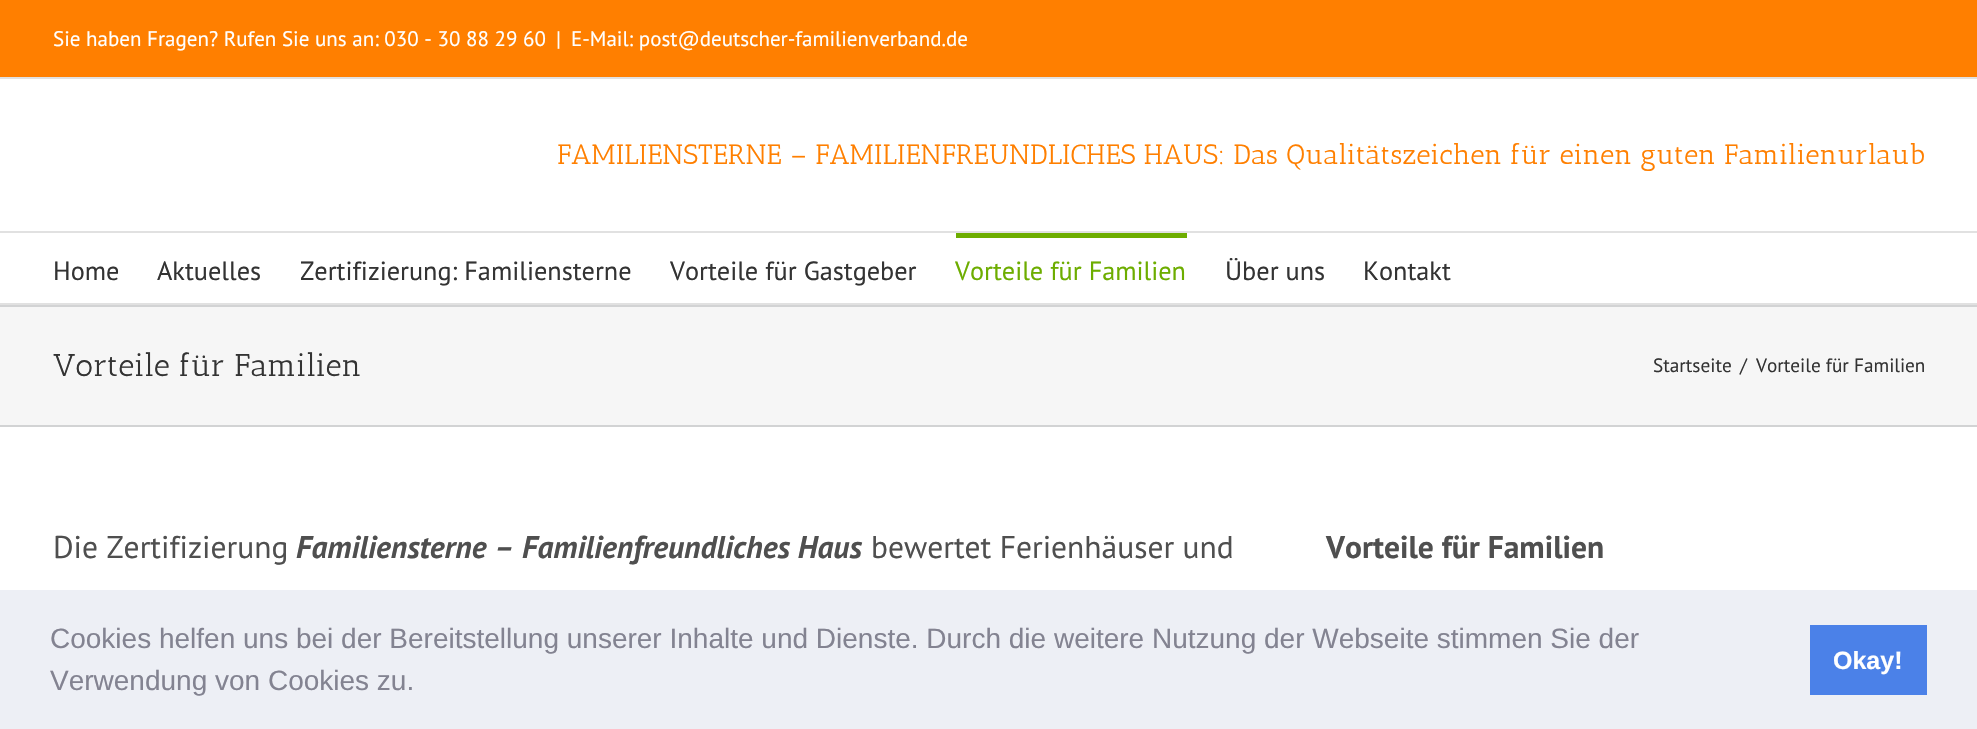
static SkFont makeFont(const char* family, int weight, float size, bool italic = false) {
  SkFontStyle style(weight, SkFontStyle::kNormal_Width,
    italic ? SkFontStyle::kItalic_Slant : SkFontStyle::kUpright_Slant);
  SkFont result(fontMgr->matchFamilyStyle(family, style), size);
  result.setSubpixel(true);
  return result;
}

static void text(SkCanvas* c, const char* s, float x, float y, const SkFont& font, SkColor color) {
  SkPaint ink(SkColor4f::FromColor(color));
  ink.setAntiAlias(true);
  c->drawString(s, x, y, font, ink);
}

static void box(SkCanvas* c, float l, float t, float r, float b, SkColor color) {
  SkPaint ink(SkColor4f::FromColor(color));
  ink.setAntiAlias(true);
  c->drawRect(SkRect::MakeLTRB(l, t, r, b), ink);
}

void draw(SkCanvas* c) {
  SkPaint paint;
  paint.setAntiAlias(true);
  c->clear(0xffffffff);
  box(c, 0, 0, 1977, 77, 0xffff7f00);
  box(c, 0, 77, 1977, 79, 0xffe1e1e1);
  SkFont face1 = makeFont("PT Sans", 400, 21);
  text(c, "Sie haben Fragen? Rufen Sie uns an: 030 - 30 88 29 60", 53, 46, face1, 0xffffffff);
  text(c, "|", 556, 46, face1, 0xffffffff);
  text(c, "E-Mail: post@deutscher-familienverband.de", 571, 46, face1, 0xffffffff);
  box(c, 0, 231, 1977, 233, 0xffe1e1e1);
  SkFont face2 = makeFont("Antic Slab", 400, 28);
  text(c, "FAMILIENSTERNE – FAMILIENFREUNDLICHES HAUS: Das Qualitätszeichen für einen guten Familienurlaub", 557, 164, face2, 0xffff7f00);
  box(c, 0, 303, 1977, 305, 0xffe1e1e1);
  SkFont face3 = makeFont("PT Sans", 400, 26.25f);
  text(c, "Home", 53, 280, face3, 0xff333333);
  text(c, "Aktuelles", 157, 280, face3, 0xff333333);
  text(c, "Zertifizierung: Familiensterne", 300, 280, face3, 0xff333333);
  text(c, "Vorteile für Gastgeber", 670, 280, face3, 0xff333333);
  box(c, 956, 233, 1187, 238, 0xff6dad00);
  text(c, "Vorteile für Familien", 955, 280, face3, 0xff6dad00);
  text(c, "Über uns", 1225, 280, face3, 0xff333333);
  text(c, "Kontakt", 1363, 280, face3, 0xff333333);
  box(c, 0, 307, 1977, 425, 0xfff6f6f6);
  box(c, 0, 305, 1977, 307, 0xffd2d3d4);
  box(c, 0, 425, 1977, 427, 0xffd2d3d4);
  SkFont face4 = makeFont("Antic Slab", 400, 31.5f);
  text(c, "Vorteile für Familien", 53, 376, face4, 0xff333333);
  SkFont face5 = makeFont("PT Sans", 400, 19.25f);
  text(c, "Startseite", 1653, 372, face5, 0xff333333);
  text(c, "/", 1740, 372, face5, 0xff333333);
  text(c, "Vorteile für Familien", 1756, 372, face5, 0xff333333);
  SkFont face6 = makeFont("PT Sans", 400, 31.5f);
  text(c, "Die Zertifizierung", 53, 558, face6, 0xff4f4f4f);
  SkFont face7 = makeFont("PT Sans", 700, 31.5f, true);
  text(c, "Familiensterne – Familienfreundliches Haus", 296, 558, face7, 0xff4f4f4f);
  text(c, "bewertet Ferienhäuser und", 871, 558, face6, 0xff4f4f4f);
  SkFont face8 = makeFont("PT Sans", 700, 31.5f);
  text(c, "Vorteile für Familien", 1326, 558, face8, 0xff4f4f4f);
  box(c, 0, 590, 1977, 729, 0xffedeff5);
  SkFont face9 = makeFont("Liberation Sans", 400, 28);
  text(c, "Cookies helfen uns bei der Bereitstellung unserer Inhalte und Dienste. Durch die weitere Nutzung der Webseite stimmen Sie der", 50, 648, face9, 0xff838391);
  text(c, "Verwendung von Cookies zu.", 50, 690, face9, 0xff838391);
  box(c, 1810, 625, 1927, 695, 0xff4b81e8);
  SkFont face10 = makeFont("Liberation Sans", 700, 25);
  text(c, "Okay!", 1833, 669, face10, 0xffffffff);
}
